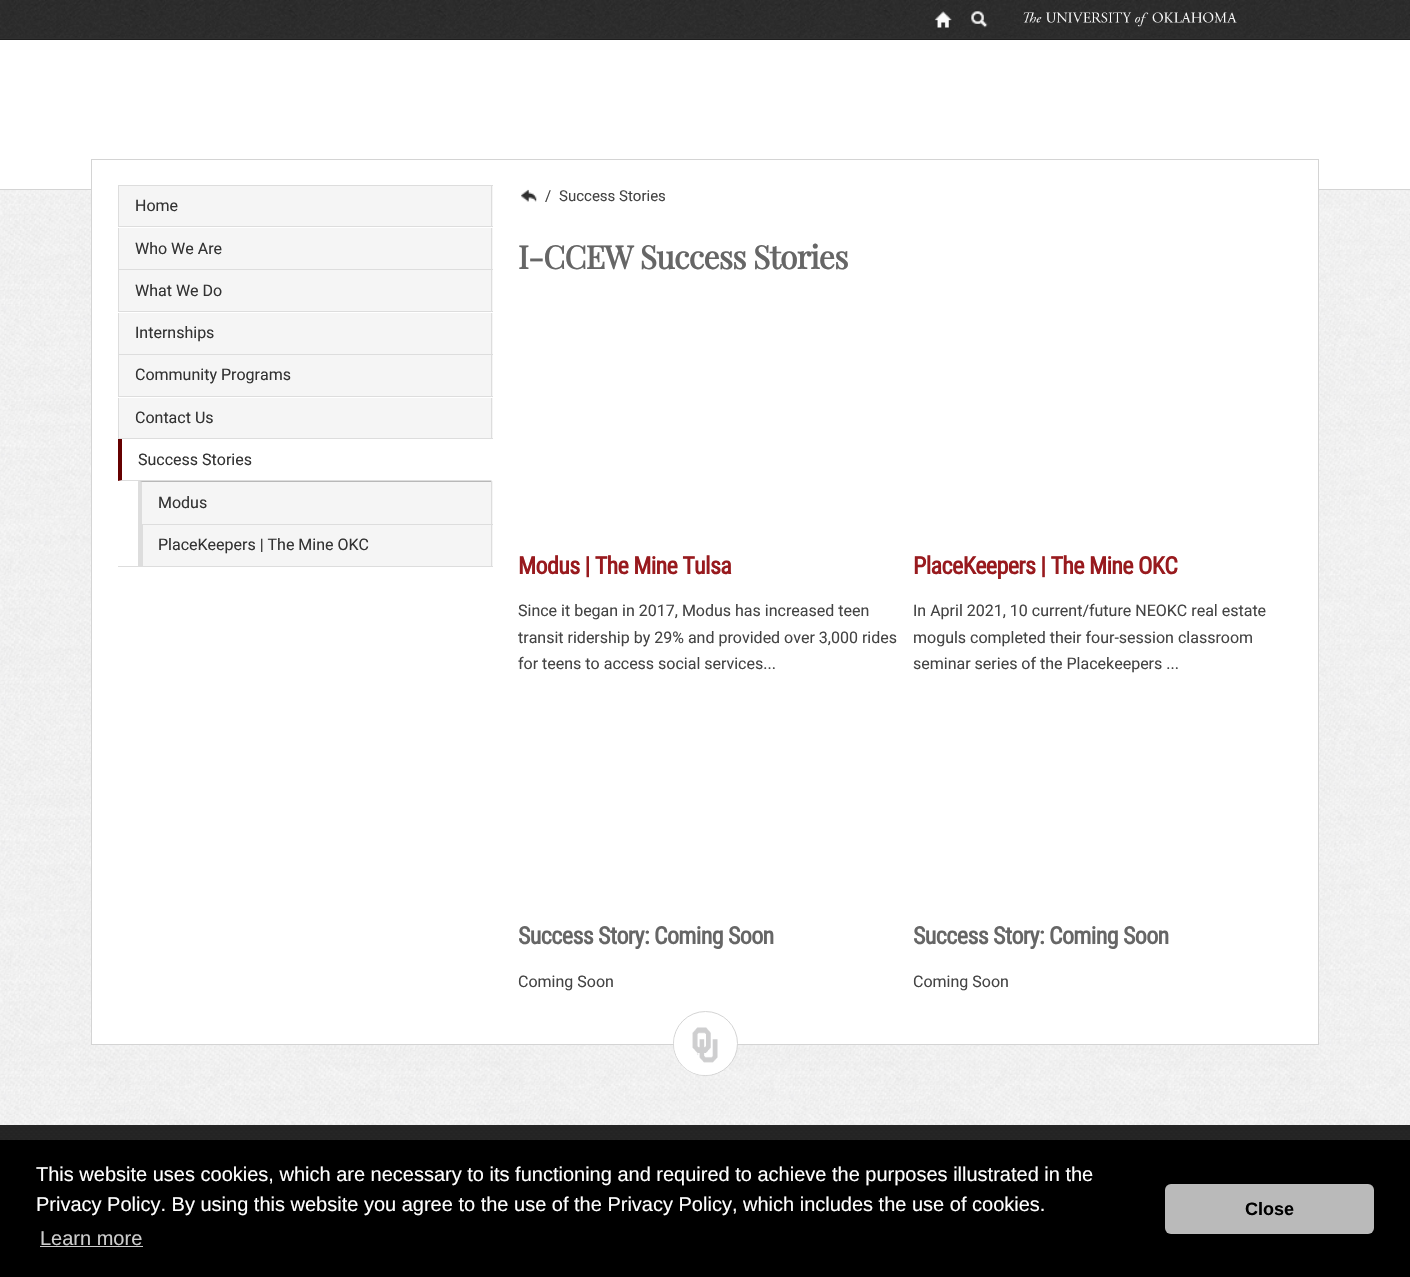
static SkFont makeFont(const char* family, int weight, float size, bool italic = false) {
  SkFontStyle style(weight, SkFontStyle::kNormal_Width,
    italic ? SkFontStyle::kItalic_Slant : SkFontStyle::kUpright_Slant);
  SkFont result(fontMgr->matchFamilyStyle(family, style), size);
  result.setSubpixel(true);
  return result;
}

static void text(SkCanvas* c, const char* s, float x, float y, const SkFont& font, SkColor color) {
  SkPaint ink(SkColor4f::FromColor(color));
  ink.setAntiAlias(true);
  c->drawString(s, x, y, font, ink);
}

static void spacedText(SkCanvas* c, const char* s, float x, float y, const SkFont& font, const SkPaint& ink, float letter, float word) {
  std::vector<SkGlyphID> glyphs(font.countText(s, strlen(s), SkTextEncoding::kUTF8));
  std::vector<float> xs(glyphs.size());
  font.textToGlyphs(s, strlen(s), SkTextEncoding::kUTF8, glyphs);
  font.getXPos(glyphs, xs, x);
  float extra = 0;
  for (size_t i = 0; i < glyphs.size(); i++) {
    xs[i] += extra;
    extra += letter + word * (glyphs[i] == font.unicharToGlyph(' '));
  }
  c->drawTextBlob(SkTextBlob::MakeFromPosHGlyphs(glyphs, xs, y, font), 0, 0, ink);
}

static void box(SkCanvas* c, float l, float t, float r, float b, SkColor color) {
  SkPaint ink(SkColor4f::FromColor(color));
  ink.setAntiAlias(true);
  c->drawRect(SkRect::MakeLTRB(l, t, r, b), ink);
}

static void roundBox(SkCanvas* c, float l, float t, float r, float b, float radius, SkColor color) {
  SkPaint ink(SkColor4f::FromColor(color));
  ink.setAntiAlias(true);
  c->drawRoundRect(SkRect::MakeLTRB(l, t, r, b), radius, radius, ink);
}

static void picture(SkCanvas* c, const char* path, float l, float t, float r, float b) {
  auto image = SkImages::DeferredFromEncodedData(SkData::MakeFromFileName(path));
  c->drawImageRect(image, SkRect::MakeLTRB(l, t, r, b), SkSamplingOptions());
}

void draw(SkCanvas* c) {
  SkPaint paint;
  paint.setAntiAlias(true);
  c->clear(0xffffffff);
  picture(c, "img_01.png", 0, 190, 1410, 1125);
  picture(c, "img_02.png", 0, 0, 1410, 38);
  picture(c, "img_03.png", 934, 11, 952, 28);
  picture(c, "img_04.png", 971, 11, 988, 28);
  picture(c, "img_05.png", 1023, 12, 1237, 27);
  box(c, 0, 39, 1410, 40, 0xff1e1e1e);
  box(c, 0, 38, 1410, 39, 0xff303030);
  box(c, 0, 189, 1410, 190, 0xffd4d4d4);
  box(c, 92, 189, 1318, 1044, 0xffffffff);
  paint.setStyle(SkPaint::kStroke_Style);
  paint.setStrokeWidth(1);
  paint.setColor(0xffd4d4d4);
  c->drawRect(SkRect::MakeLTRB(91.5f, 159.5f, 1318.5f, 1044.5f), paint);
  box(c, 118, 185, 493, 186, 0xffdddddd);
  box(c, 118, 566, 493, 567, 0xffdddddd);
  box(c, 118, 226, 493, 227, 0xffdddddd);
  box(c, 119, 186, 493, 226, 0xfff5f5f5);
  box(c, 491, 186, 492, 226, 0xffdddddd);
  box(c, 118, 186, 119, 226, 0xffdddddd);
  SkFont face1 = makeFont("Roboto", 400, 16);
  text(c, "Home", 135, 211, face1, 0xff333333);
  box(c, 118, 269, 493, 270, 0xffdddddd);
  box(c, 119, 228, 493, 269, 0xfff5f5f5);
  box(c, 491, 228, 492, 269, 0xffdddddd);
  box(c, 118, 228, 119, 269, 0xffdddddd);
  text(c, "Who We Are", 135, 254, face1, 0xff333333);
  box(c, 118, 311, 493, 312, 0xffdddddd);
  box(c, 119, 270, 493, 311, 0xfff5f5f5);
  box(c, 491, 270, 492, 311, 0xffdddddd);
  box(c, 118, 270, 119, 311, 0xffdddddd);
  text(c, "What We Do", 135, 296, face1, 0xff333333);
  box(c, 118, 354, 493, 355, 0xffdddddd);
  box(c, 119, 313, 493, 354, 0xfff5f5f5);
  box(c, 491, 313, 492, 354, 0xffdddddd);
  box(c, 118, 313, 119, 354, 0xffdddddd);
  text(c, "Internships", 135, 338, face1, 0xff333333);
  box(c, 118, 396, 493, 397, 0xffdddddd);
  box(c, 119, 355, 493, 396, 0xfff5f5f5);
  box(c, 491, 355, 492, 396, 0xffdddddd);
  box(c, 118, 355, 119, 396, 0xffdddddd);
  text(c, "Community Programs", 135, 380, face1, 0xff333333);
  box(c, 118, 438, 493, 439, 0xffdddddd);
  box(c, 119, 398, 493, 438, 0xfff5f5f5);
  box(c, 491, 398, 492, 438, 0xffdddddd);
  box(c, 118, 398, 119, 438, 0xffdddddd);
  text(c, "Contact Us", 135, 423, face1, 0xff333333);
  paint.setStyle(SkPaint::kFill_Style);
  paint.setColor(0xffdddddd);
  c->drawPath(SkPathBuilder().moveTo(492, 481).lineTo(118, 481).lineTo(122, 480).lineTo(491, 480).close().detach(), paint);
  paint.setColor(0xff660000);
  c->drawPath(SkPathBuilder().moveTo(118, 481).lineTo(118, 439).lineTo(122, 439).lineTo(122, 480).close().detach(), paint);
  text(c, "Success Stories", 138, 465, face1, 0xff333333);
  box(c, 138, 524, 493, 525, 0xffdddddd);
  box(c, 138, 481, 493, 524, 0xfff5f5f5);
  paint.setColor(0xffb8b8b8);
  c->drawPath(SkPathBuilder().moveTo(138, 481).lineTo(492, 481).lineTo(491, 482).lineTo(142, 482).close().detach(), paint);
  box(c, 491, 481, 492, 524, 0xffdddddd);
  paint.setColor(0xffdddddd);
  c->drawPath(SkPathBuilder().moveTo(138, 524).lineTo(138, 481).lineTo(142, 482).lineTo(142, 524).close().detach(), paint);
  text(c, "Modus", 158, 508, face1, 0xff333333);
  box(c, 143, 525, 493, 566, 0xfff5f5f5);
  box(c, 491, 525, 492, 566, 0xffdddddd);
  box(c, 138, 525, 143, 566, 0xffdddddd);
  text(c, "PlaceKeepers | The Mine OKC", 158, 550, face1, 0xff333333);
  picture(c, "img_06.png", 521, 189, 537, 202);
  SkFont face2 = makeFont("Roboto", 400, 15);
  text(c, "/", 545, 201, face2, 0xff444444);
  text(c, "Success Stories", 559, 201, face2, 0xff444444);
  SkFont face3 = makeFont("Playfair Display", 700, 32);
  paint.setColor(0xff666666);
  spacedText(c, "I-CCEW Success Stories", 518, 269, face3, paint, -0.8f, 0);
  SkFont face4 = makeFont("Roboto Condensed", 700, 24);
  paint.setColor(0xff981a1e);
  spacedText(c, "Modus | The Mine Tulsa", 518, 574, face4, paint, -0.6f, 0);
  text(c, "Since it began in 2017, Modus has increased teen", 518, 616, face1, 0xff444444);
  text(c, "transit ridership by 29% and provided over 3,000 rides", 518, 643, face1, 0xff444444);
  text(c, "for teens to access social services...", 518, 669, face1, 0xff444444);
  paint.setColor(0xff666666);
  spacedText(c, "Success Story: Coming Soon", 518, 944, face4, paint, -0.6f, 0);
  text(c, "Coming Soon", 518, 987, face1, 0xff444444);
  paint.setColor(0xff981a1e);
  spacedText(c, "PlaceKeepers | The Mine OKC", 913, 574, face4, paint, -0.6f, 0);
  text(c, "In April 2021, 10 current/future NEOKC real estate", 913, 616, face1, 0xff444444);
  text(c, "moguls completed their four-session classroom", 913, 643, face1, 0xff444444);
  text(c, "seminar series of the Placekeepers ...", 913, 669, face1, 0xff444444);
  paint.setColor(0xff666666);
  spacedText(c, "Success Story: Coming Soon", 913, 944, face4, paint, -0.6f, 0);
  text(c, "Coming Soon", 913, 987, face1, 0xff444444);
  paint.setColor(0xffffffff);
  c->drawCircle(705.5f, 1043.5f, 32, paint);
  paint.setStyle(SkPaint::kStroke_Style);
  paint.setColor(0xffd4d4d4);
  c->drawCircle(705.5f, 1043.5f, 32, paint);
  paint.setStyle(SkPaint::kFill_Style);
  paint.setColor(0xffffffff);
  c->drawCircle(705, 1044, 31, paint);
  picture(c, "img_07.png", 692, 1027, 718, 1063);
  picture(c, "img_08.png", 0, 1125, 1410, 1140);
  box(c, 0, 1140, 1410, 1277, 0xff000000);
  SkFont face5 = makeFont("Liberation Sans", 400, 20);
  text(c, "This website uses cookies, which are necessary to its functioning and required to achieve the purposes illustrated in the", 36, 1181, face5, 0xffffffff);
  text(c, "Privacy Policy. By using this website you agree to the use of the Privacy Policy, which includes the use of cookies.", 36, 1211, face5, 0xffffffff);
  text(c, "Learn more", 40, 1245, face5, 0xffcccccc);
  box(c, 40, 1246, 143, 1247, 0xffcccccc);
  roundBox(c, 1165, 1184, 1374, 1234, 6, 0xffbababa);
  SkFont face6 = makeFont("Liberation Sans", 700, 18);
  text(c, "Close", 1245, 1215, face6, 0xff000000);
}
